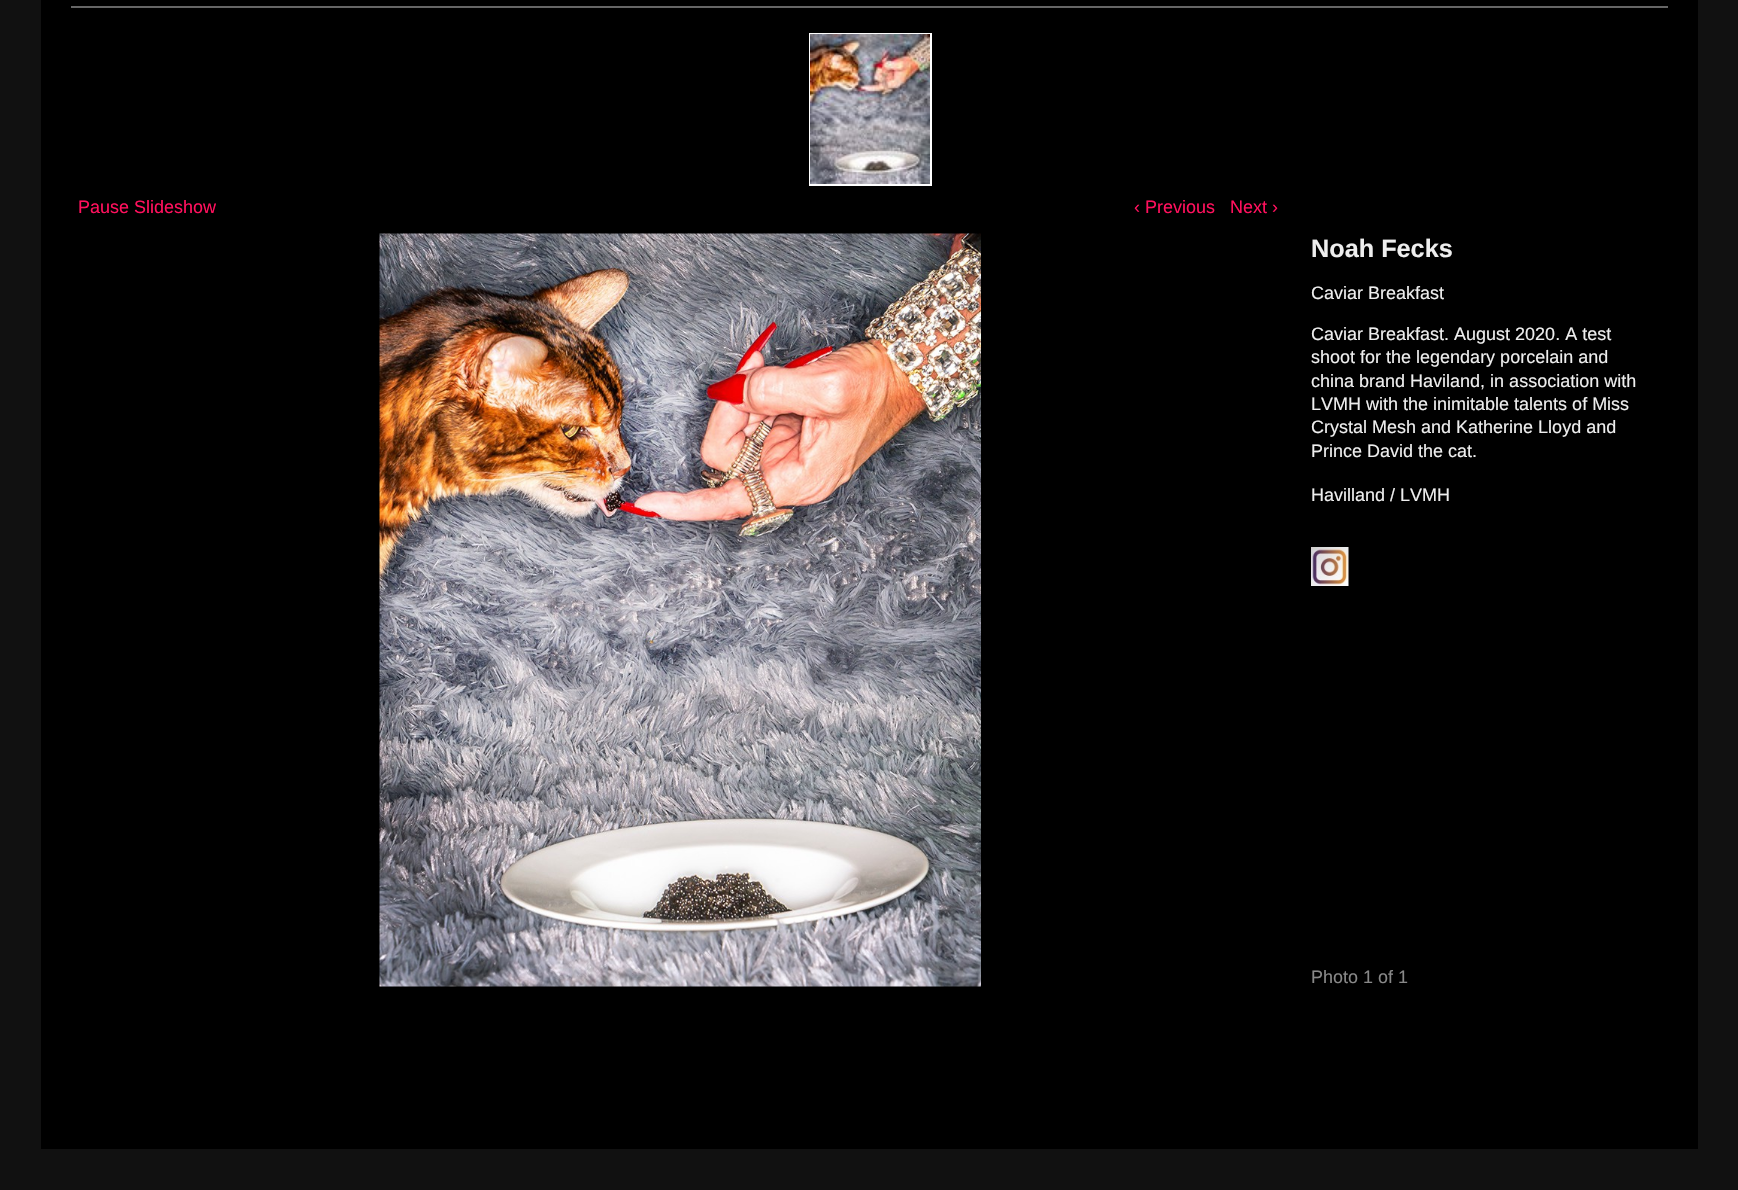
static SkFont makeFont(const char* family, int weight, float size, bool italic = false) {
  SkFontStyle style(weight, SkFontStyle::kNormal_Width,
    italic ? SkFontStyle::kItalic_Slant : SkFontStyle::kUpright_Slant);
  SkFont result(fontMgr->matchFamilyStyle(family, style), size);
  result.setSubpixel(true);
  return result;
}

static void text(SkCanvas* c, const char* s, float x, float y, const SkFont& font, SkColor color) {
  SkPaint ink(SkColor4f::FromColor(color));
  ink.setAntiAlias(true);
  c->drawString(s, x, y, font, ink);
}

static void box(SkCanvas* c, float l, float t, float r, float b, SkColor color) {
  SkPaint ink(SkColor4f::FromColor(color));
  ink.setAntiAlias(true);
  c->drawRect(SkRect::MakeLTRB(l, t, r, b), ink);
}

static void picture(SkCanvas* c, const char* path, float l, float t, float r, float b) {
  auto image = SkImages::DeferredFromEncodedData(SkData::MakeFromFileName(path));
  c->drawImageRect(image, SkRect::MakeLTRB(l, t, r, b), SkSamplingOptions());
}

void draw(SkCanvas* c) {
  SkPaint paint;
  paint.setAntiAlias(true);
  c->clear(0xff111111);
  box(c, 41, 0, 1698, 1149, 0xff000000);
  box(c, 71, 6, 1668, 8, 0xff666666);
  box(c, 809, 33, 932, 186, 0xffffffff);
  picture(c, "img_01.png", 810, 34, 930, 184);
  SkFont face1 = makeFont("Liberation Sans", 400, 18);
  text(c, "Pause Slideshow", 78, 213, face1, 0xffff105d);
  text(c, "‹ Previous", 1134, 213, face1, 0xffff105d);
  text(c, "Next ›", 1230, 213, face1, 0xffff105d);
  picture(c, "img_02.png", 379, 233, 981, 987);
  SkFont face2 = makeFont("Liberation Sans", 700, 25.25f);
  text(c, "Noah Fecks", 1311, 257, face2, 0xffeeeeee);
  text(c, "Caviar Breakfast", 1311, 299, face1, 0xffeeeeee);
  text(c, "Caviar Breakfast. August 2020. A test", 1311, 340, face1, 0xffeeeeee);
  text(c, "shoot for the legendary porcelain and", 1311, 363, face1, 0xffeeeeee);
  text(c, "china brand Haviland, in association with", 1311, 387, face1, 0xffeeeeee);
  text(c, "LVMH with the inimitable talents of Miss", 1311, 410, face1, 0xffeeeeee);
  text(c, "Crystal Mesh and Katherine Lloyd and", 1311, 433, face1, 0xffeeeeee);
  text(c, "Prince David the cat.", 1311, 457, face1, 0xffeeeeee);
  text(c, "Havilland / LVMH", 1311, 501, face1, 0xffeeeeee);
  picture(c, "img_03.png", 1311, 547, 1349, 586);
  text(c, "Photo 1 of 1", 1311, 983, face1, 0xff888888);
}
